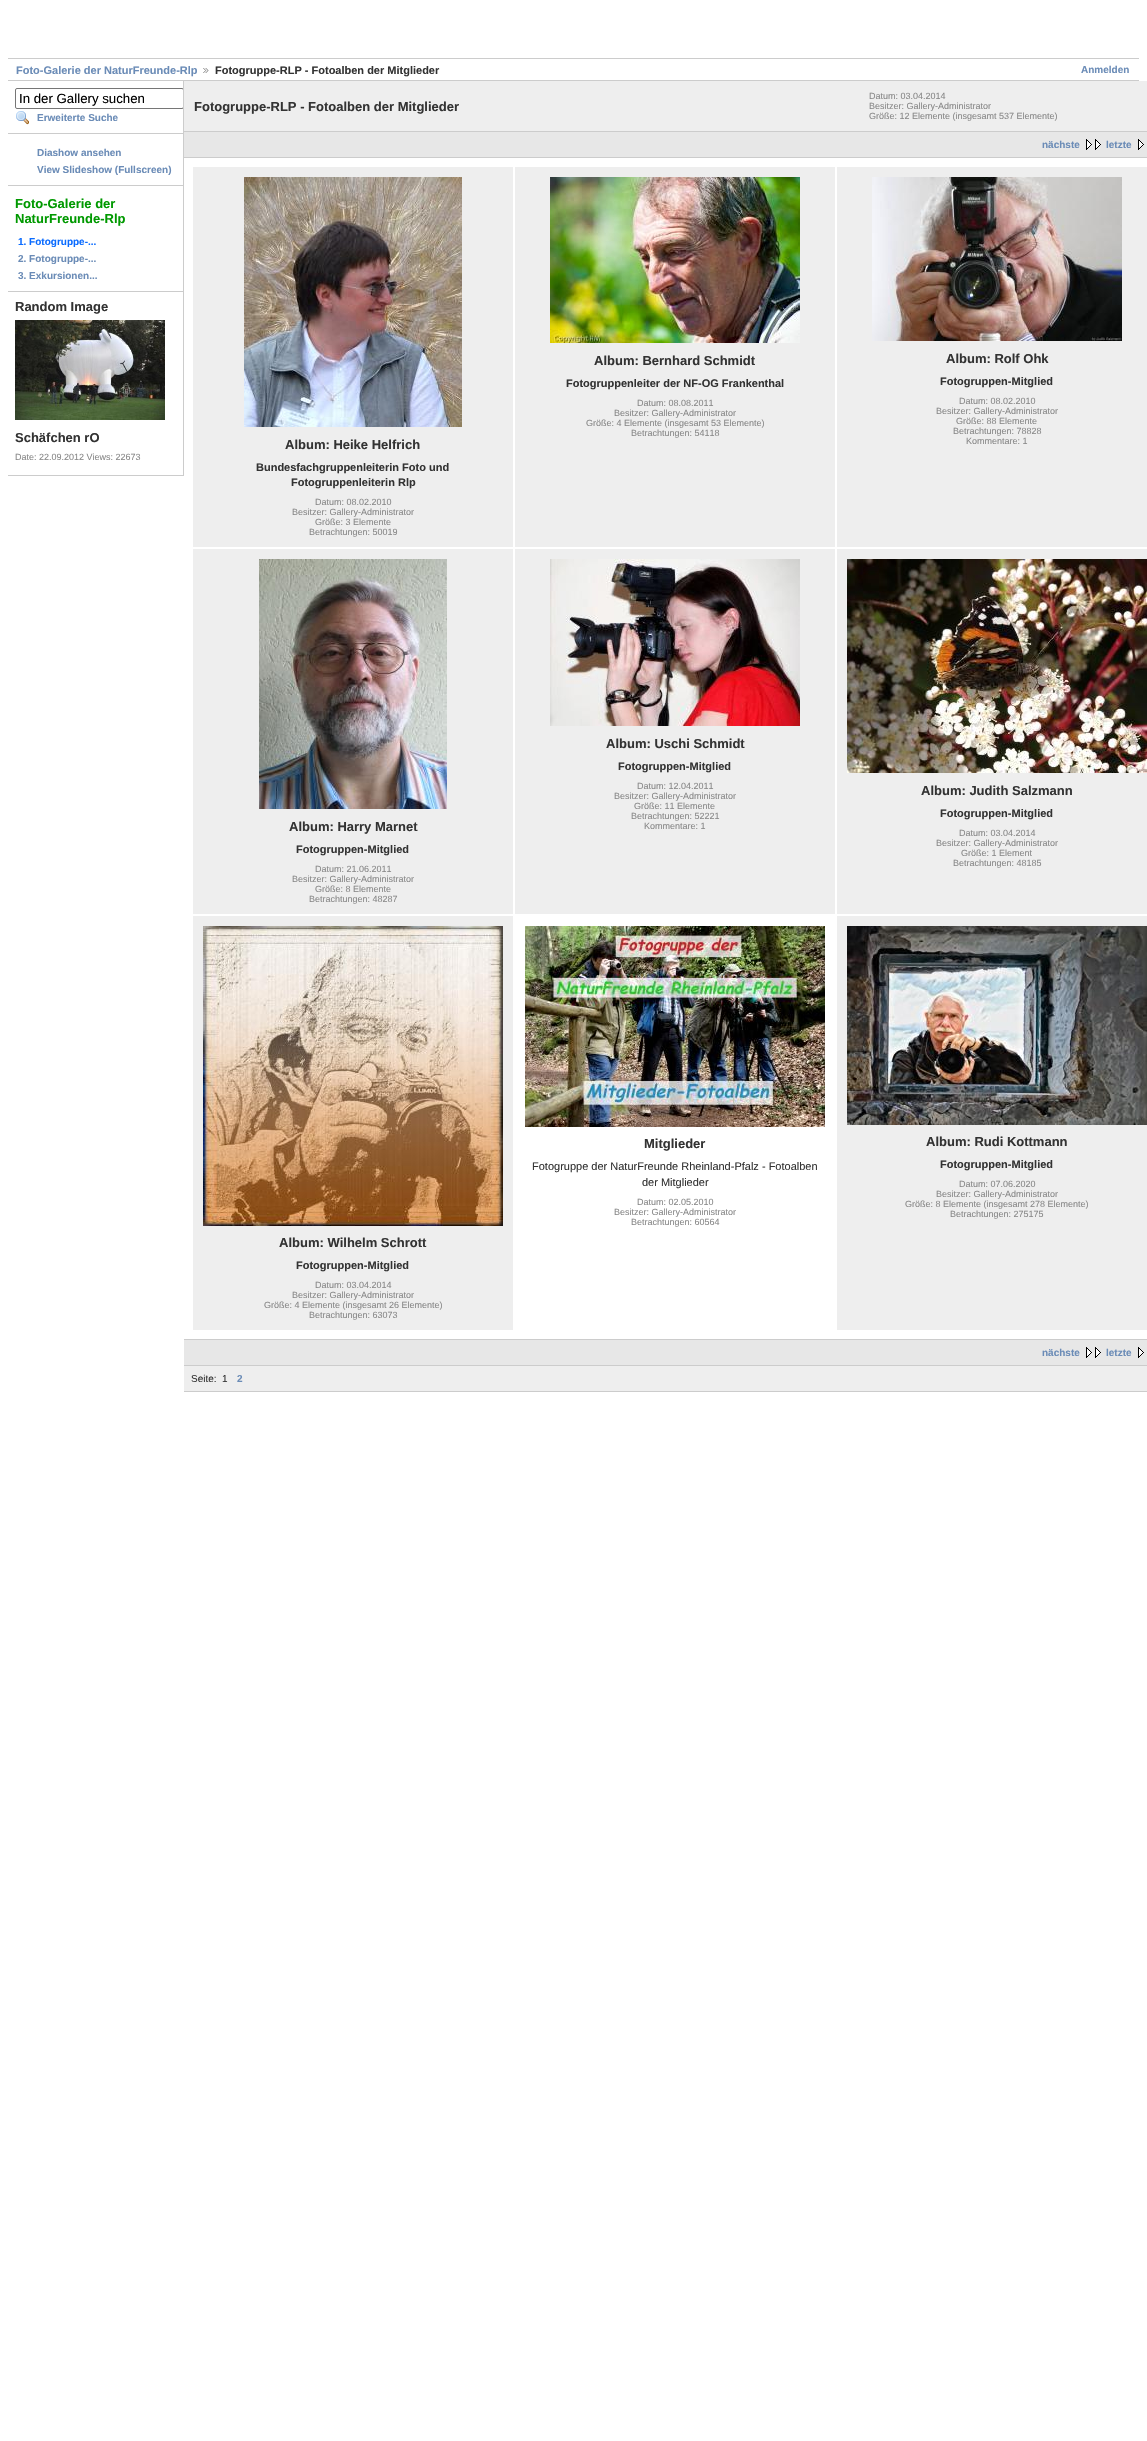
static SkFont makeFont(const char* family, int weight, float size, bool italic = false) {
  SkFontStyle style(weight, SkFontStyle::kNormal_Width,
    italic ? SkFontStyle::kItalic_Slant : SkFontStyle::kUpright_Slant);
  SkFont result(fontMgr->matchFamilyStyle(family, style), size);
  result.setSubpixel(true);
  return result;
}

static void text(SkCanvas* c, const char* s, float x, float y, const SkFont& font, SkColor color) {
  SkPaint ink(SkColor4f::FromColor(color));
  ink.setAntiAlias(true);
  c->drawString(s, x, y, font, ink);
}

static void box(SkCanvas* c, float l, float t, float r, float b, SkColor color) {
  SkPaint ink(SkColor4f::FromColor(color));
  ink.setAntiAlias(true);
  c->drawRect(SkRect::MakeLTRB(l, t, r, b), ink);
}

static void picture(SkCanvas* c, const char* path, float l, float t, float r, float b) {
  auto image = SkImages::DeferredFromEncodedData(SkData::MakeFromFileName(path));
  c->drawImageRect(image, SkRect::MakeLTRB(l, t, r, b), SkSamplingOptions());
}

void draw(SkCanvas* c) {
  SkPaint paint;
  paint.setAntiAlias(true);
  c->clear(0xffffffff);
  box(c, 8, 58, 1139, 59, 0xffcccccc);
  box(c, 8, 80, 1139, 81, 0xffcccccc);
  SkFont face1 = makeFont("Liberation Sans", 700, 11);
  text(c, "Foto-Galerie der NaturFreunde-Rlp", 16, 74, face1, 0xff6b8cb7);
  picture(c, "img_01.png", 203, 68, 209, 73);
  text(c, "Fotogruppe-RLP - Fotoalben der Mitglieder", 215, 74, face1, 0xff333333);
  SkFont face2 = makeFont("Liberation Sans", 700, 10);
  text(c, "Anmelden", 1081, 73, face2, 0xff6b8cb7);
  box(c, 183, 81, 184, 476, 0xffcccccc);
  box(c, 8, 133, 183, 134, 0xffcccccc);
  c->save();
  c->clipRect(SkRect::MakeLTRB(8, 81, 183, 476));
  paint.setStyle(SkPaint::kStroke_Style);
  paint.setStrokeWidth(1);
  paint.setColor(0xff767676);
  c->drawRoundRect(SkRect::MakeLTRB(15.5f, 88.5f, 183.5f, 108.5f), 1.5f, 1.5f, paint);
  c->restore();
  SkFont face3 = makeFont("Liberation Sans", 400, 13.25f);
  text(c, "In der Gallery suchen", 19, 103, face3, 0xff000000);
  picture(c, "img_02.png", 16, 111, 29, 125);
  text(c, "Erweiterte Suche", 37, 121, face2, 0xff6b8cb7);
  box(c, 8, 185, 183, 186, 0xffcccccc);
  text(c, "Diashow ansehen", 37, 156, face2, 0xff6b8cb7);
  text(c, "View Slideshow (Fullscreen)", 37, 173, face2, 0xff6b8cb7);
  box(c, 8, 291, 183, 292, 0xffcccccc);
  SkFont face4 = makeFont("Liberation Sans", 700, 13);
  text(c, "Foto-Galerie der", 15, 208, face4, 0xff009900);
  text(c, "NaturFreunde-Rlp", 15, 223, face4, 0xff009900);
  text(c, "1. Fotogruppe-...", 18, 245, face2, 0xff0b6cff);
  text(c, "2. Fotogruppe-...", 18, 262, face2, 0xff6b8cb7);
  text(c, "3. Exkursionen...", 18, 279, face2, 0xff6b8cb7);
  box(c, 8, 475, 183, 476, 0xffcccccc);
  text(c, "Random Image", 15, 311, face4, 0xff333333);
  picture(c, "img_03.png", 15, 320, 165, 420);
  text(c, "Schäfchen rO", 15, 442, face4, 0xff333333);
  SkFont face5 = makeFont("Liberation Sans", 400, 9);
  text(c, "Date: 22.09.2012 Views: 22673", 15, 460, face5, 0xff888888);
  box(c, 184, 81, 1147, 131, 0xffeeeeee);
  box(c, 184, 131, 1147, 132, 0xffcccccc);
  text(c, "Fotogruppe-RLP - Fotoalben der Mitglieder", 194, 111, face4, 0xff333333);
  text(c, "Datum: 03.04.2014", 869, 99, face5, 0xff888888);
  text(c, "Besitzer: Gallery-Administrator", 869, 109, face5, 0xff888888);
  text(c, "Größe: 12 Elemente (insgesamt 537 Elemente)", 869, 119, face5, 0xff888888);
  box(c, 184, 132, 1147, 157, 0xffe7e7e7);
  box(c, 184, 157, 1147, 158, 0xffcccccc);
  text(c, "nächste", 1042, 148, face2, 0xff6b8cb7);
  picture(c, "img_04.png", 1086, 139, 1101, 150);
  text(c, "letzte", 1106, 148, face2, 0xff6b8cb7);
  picture(c, "img_05.png", 1138, 139, 1144, 150);
  box(c, 184, 1339, 1147, 1340, 0xffcccccc);
  box(c, 515, 167, 835, 547, 0xffeeeeee);
  picture(c, "img_06.png", 550, 177, 800, 343);
  text(c, "Album: Bernhard Schmidt", 594, 365, face4, 0xff333333);
  text(c, "Fotogruppenleiter der NF-OG Frankenthal", 566, 387, face1, 0xff333333);
  text(c, "Datum: 08.08.2011", 637, 406, face5, 0xff888888);
  text(c, "Besitzer: Gallery-Administrator", 614, 416, face5, 0xff888888);
  text(c, "Größe: 4 Elemente (insgesamt 53 Elemente)", 586, 426, face5, 0xff888888);
  text(c, "Betrachtungen: 54118", 631, 436, face5, 0xff888888);
  box(c, 837, 167, 1147, 547, 0xffeeeeee);
  picture(c, "img_07.png", 872, 177, 1122, 341);
  text(c, "Album: Rolf Ohk", 946, 363, face4, 0xff333333);
  text(c, "Fotogruppen-Mitglied", 940, 385, face1, 0xff333333);
  text(c, "Datum: 08.02.2010", 959, 404, face5, 0xff888888);
  text(c, "Besitzer: Gallery-Administrator", 936, 414, face5, 0xff888888);
  text(c, "Größe: 88 Elemente", 956, 424, face5, 0xff888888);
  text(c, "Betrachtungen: 78828", 953, 434, face5, 0xff888888);
  text(c, "Kommentare: 1", 966, 444, face5, 0xff888888);
  box(c, 193, 167, 513, 547, 0xffeeeeee);
  picture(c, "img_08.png", 244, 177, 462, 427);
  text(c, "Album: Heike Helfrich", 285, 449, face4, 0xff333333);
  text(c, "Bundesfachgruppenleiterin Foto und", 256, 471, face1, 0xff333333);
  text(c, "Fotogruppenleiterin Rlp", 291, 486, face1, 0xff333333);
  text(c, "Datum: 08.02.2010", 315, 505, face5, 0xff888888);
  text(c, "Besitzer: Gallery-Administrator", 292, 515, face5, 0xff888888);
  text(c, "Größe: 3 Elemente", 315, 525, face5, 0xff888888);
  text(c, "Betrachtungen: 50019", 309, 535, face5, 0xff888888);
  box(c, 193, 549, 513, 914, 0xffeeeeee);
  picture(c, "img_09.png", 259, 559, 447, 809);
  text(c, "Album: Harry Marnet", 289, 831, face4, 0xff333333);
  text(c, "Fotogruppen-Mitglied", 296, 853, face1, 0xff333333);
  text(c, "Datum: 21.06.2011", 315, 872, face5, 0xff888888);
  text(c, "Besitzer: Gallery-Administrator", 292, 882, face5, 0xff888888);
  text(c, "Größe: 8 Elemente", 315, 892, face5, 0xff888888);
  text(c, "Betrachtungen: 48287", 309, 902, face5, 0xff888888);
  box(c, 515, 549, 835, 914, 0xffeeeeee);
  picture(c, "img_10.png", 550, 559, 800, 726);
  text(c, "Album: Uschi Schmidt", 606, 748, face4, 0xff333333);
  text(c, "Fotogruppen-Mitglied", 618, 770, face1, 0xff333333);
  text(c, "Datum: 12.04.2011", 637, 789, face5, 0xff888888);
  text(c, "Besitzer: Gallery-Administrator", 614, 799, face5, 0xff888888);
  text(c, "Größe: 11 Elemente", 634, 809, face5, 0xff888888);
  text(c, "Betrachtungen: 52221", 631, 819, face5, 0xff888888);
  text(c, "Kommentare: 1", 644, 829, face5, 0xff888888);
  box(c, 837, 549, 1147, 914, 0xffeeeeee);
  picture(c, "img_11.png", 847, 559, 1147, 773);
  text(c, "Album: Judith Salzmann", 921, 795, face4, 0xff333333);
  text(c, "Fotogruppen-Mitglied", 940, 817, face1, 0xff333333);
  text(c, "Datum: 03.04.2014", 959, 836, face5, 0xff888888);
  text(c, "Besitzer: Gallery-Administrator", 936, 846, face5, 0xff888888);
  text(c, "Größe: 1 Element", 961, 856, face5, 0xff888888);
  text(c, "Betrachtungen: 48185", 953, 866, face5, 0xff888888);
  picture(c, "img_12.png", 525, 926, 825, 1127);
  text(c, "Mitglieder", 644, 1148, face4, 0xff333333);
  SkFont face6 = makeFont("Liberation Sans", 400, 11);
  text(c, "Fotogruppe der NaturFreunde Rheinland-Pfalz - Fotoalben", 532, 1170, face6, 0xff333333);
  text(c, "der Mitglieder", 642, 1186, face6, 0xff333333);
  text(c, "Datum: 02.05.2010", 637, 1205, face5, 0xff888888);
  text(c, "Besitzer: Gallery-Administrator", 614, 1215, face5, 0xff888888);
  text(c, "Betrachtungen: 60564", 631, 1225, face5, 0xff888888);
  box(c, 837, 916, 1147, 1330, 0xffeeeeee);
  picture(c, "img_13.png", 847, 926, 1147, 1125);
  text(c, "Album: Rudi Kottmann", 926, 1146, face4, 0xff333333);
  text(c, "Fotogruppen-Mitglied", 940, 1168, face1, 0xff333333);
  text(c, "Datum: 07.06.2020", 959, 1187, face5, 0xff888888);
  text(c, "Besitzer: Gallery-Administrator", 936, 1197, face5, 0xff888888);
  text(c, "Größe: 8 Elemente (insgesamt 278 Elemente)", 905, 1207, face5, 0xff888888);
  text(c, "Betrachtungen: 275175", 950, 1217, face5, 0xff888888);
  box(c, 193, 916, 513, 1330, 0xffeeeeee);
  picture(c, "img_14.png", 203, 926, 503, 1226);
  text(c, "Album: Wilhelm Schrott", 279, 1247, face4, 0xff333333);
  text(c, "Fotogruppen-Mitglied", 296, 1269, face1, 0xff333333);
  text(c, "Datum: 03.04.2014", 315, 1288, face5, 0xff888888);
  text(c, "Besitzer: Gallery-Administrator", 292, 1298, face5, 0xff888888);
  text(c, "Größe: 4 Elemente (insgesamt 26 Elemente)", 264, 1308, face5, 0xff888888);
  text(c, "Betrachtungen: 63073", 309, 1318, face5, 0xff888888);
  box(c, 184, 1340, 1147, 1365, 0xffe7e7e7);
  box(c, 184, 1365, 1147, 1366, 0xffcccccc);
  text(c, "nächste", 1042, 1356, face2, 0xff6b8cb7);
  picture(c, "img_04.png", 1086, 1347, 1101, 1358);
  text(c, "letzte", 1106, 1356, face2, 0xff6b8cb7);
  picture(c, "img_05.png", 1138, 1347, 1144, 1358);
  box(c, 184, 1366, 1147, 1391, 0xffeeeeee);
  box(c, 184, 1391, 1147, 1392, 0xffcccccc);
  SkFont face7 = makeFont("Liberation Sans", 400, 10);
  text(c, "Seite:", 191, 1382, face7, 0xff333333);
  text(c, "1", 222, 1382, face7, 0xff333333);
  text(c, "2", 237, 1382, face2, 0xff6b8cb7);
}
